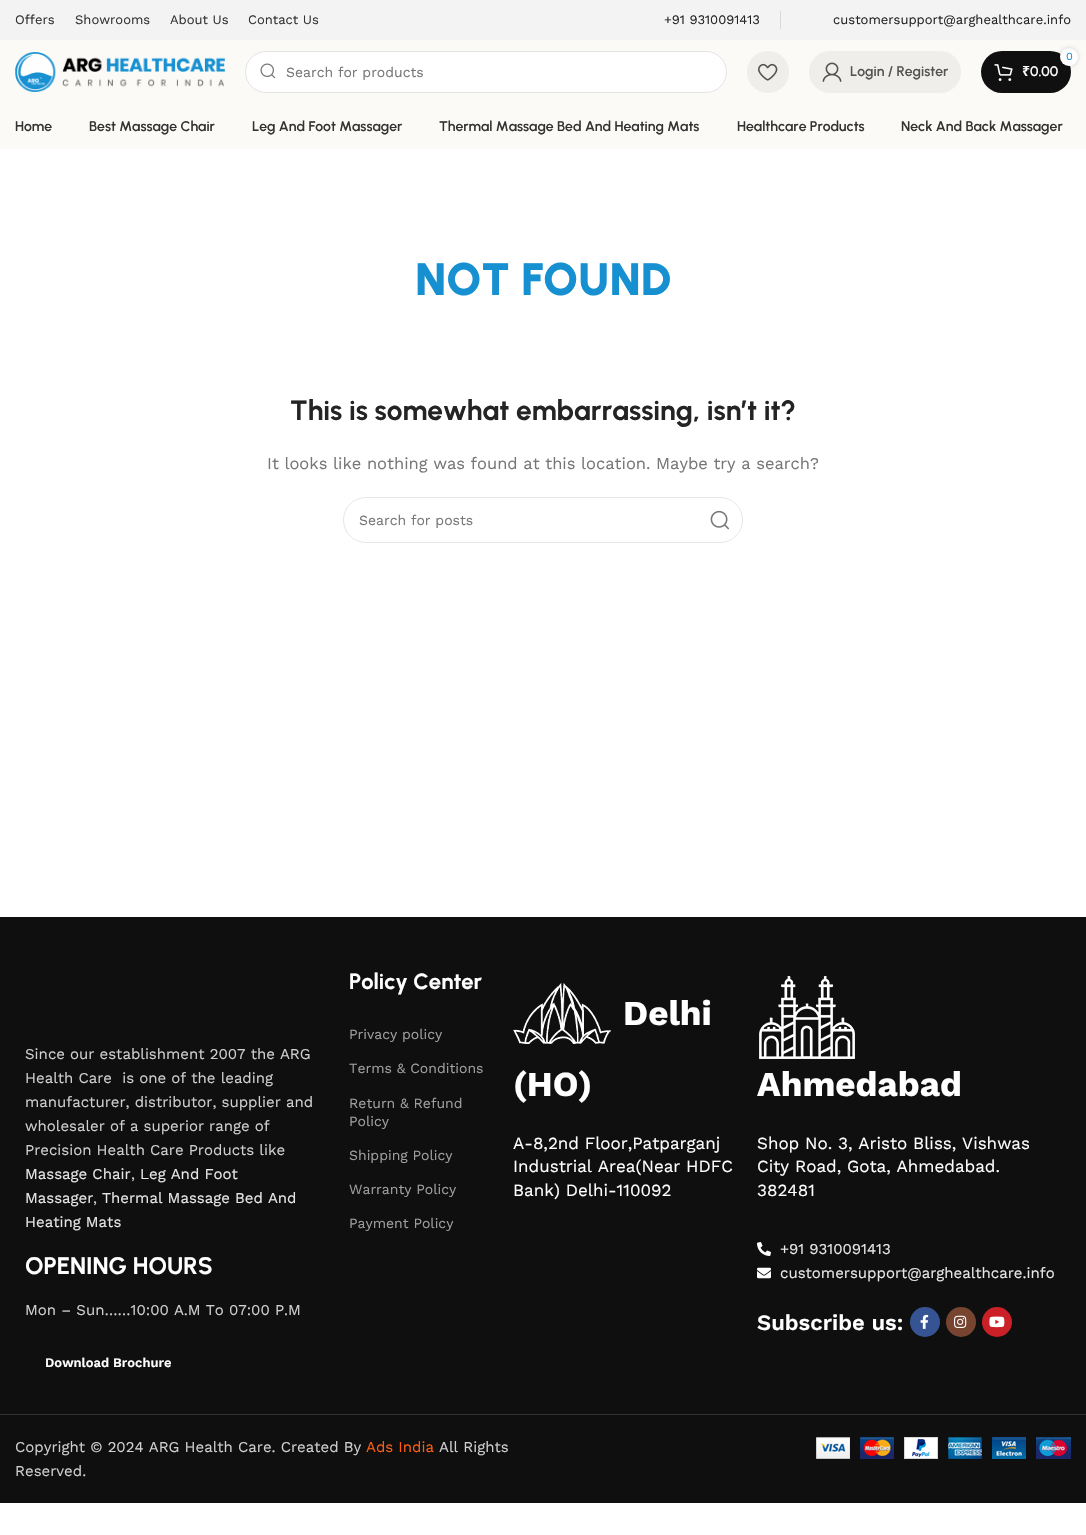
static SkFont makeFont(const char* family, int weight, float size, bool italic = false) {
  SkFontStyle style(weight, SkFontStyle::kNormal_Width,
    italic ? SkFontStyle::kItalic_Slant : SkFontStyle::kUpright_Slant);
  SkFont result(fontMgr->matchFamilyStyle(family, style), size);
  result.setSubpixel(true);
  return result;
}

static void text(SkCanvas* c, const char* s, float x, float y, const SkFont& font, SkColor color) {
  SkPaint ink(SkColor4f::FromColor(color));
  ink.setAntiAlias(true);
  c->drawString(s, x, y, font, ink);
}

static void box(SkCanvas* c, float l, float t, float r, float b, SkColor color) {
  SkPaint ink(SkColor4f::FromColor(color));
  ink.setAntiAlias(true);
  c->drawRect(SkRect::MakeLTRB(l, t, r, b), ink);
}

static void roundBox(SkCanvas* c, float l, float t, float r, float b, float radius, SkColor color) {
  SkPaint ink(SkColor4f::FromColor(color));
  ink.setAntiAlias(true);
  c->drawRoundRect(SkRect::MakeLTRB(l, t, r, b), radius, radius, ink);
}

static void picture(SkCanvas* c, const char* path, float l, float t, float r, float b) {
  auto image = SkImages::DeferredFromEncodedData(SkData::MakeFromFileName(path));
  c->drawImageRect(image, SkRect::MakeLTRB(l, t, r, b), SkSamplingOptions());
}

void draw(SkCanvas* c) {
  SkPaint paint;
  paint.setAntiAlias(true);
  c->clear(0xffffffff);
  box(c, 0, 0, 1086, 40, 0xfff3f3f3);
  SkFont face1 = makeFont("Work Sans", 400, 13);
  text(c, "Offers", 15, 24, face1, 0xff333333);
  text(c, "Showrooms", 75, 24, face1, 0xff333333);
  text(c, "About Us", 170, 24, face1, 0xff333333);
  text(c, "Contact Us", 248, 24, face1, 0xff333333);
  text(c, "+91 9310091413", 664, 24, face1, 0xff242424);
  box(c, 780, 11, 781, 29, 0xffd9d9d9);
  text(c, "customersupport@arghealthcare.info", 833, 24, face1, 0xff242424);
  box(c, 0, 40, 1086, 149, 0xfffbfaf7);
  picture(c, "img_01.png", 15, 52, 225, 92);
  roundBox(c, 245, 51, 727, 93, 21, 0xffffffff);
  paint.setStyle(SkPaint::kStroke_Style);
  paint.setStrokeWidth(1);
  paint.setColor(0x1a000000);
  c->drawRoundRect(SkRect::MakeLTRB(245.5f, 51.5f, 726.5f, 92.5f), 20.5f, 20.5f, paint);
  picture(c, "img_02.png", 260, 63, 276, 79);
  SkFont face2 = makeFont("Work Sans", 400, 14);
  text(c, "Search for products", 286, 77, face2, 0xff777777);
  paint.setStyle(SkPaint::kFill_Style);
  paint.setColor(0xffefeeeb);
  c->drawCircle(768, 72, 21, paint);
  picture(c, "img_03.png", 758, 63, 778, 81);
  roundBox(c, 809, 51, 961, 93, 21, 0xffefeeeb);
  picture(c, "img_04.png", 822, 62, 842, 82);
  SkFont face3 = makeFont("Urbanist", 600, 14);
  text(c, "Login / Register", 850, 76, face3, 0xff535352);
  roundBox(c, 981, 51, 1071, 93, 21, 0xff101010);
  paint.setColor(0x2b000000);
  paint.setMaskFilter(SkMaskFilter::MakeBlur(kNormal_SkBlurStyle, 2));
  c->drawRoundRect(SkRect::MakeLTRB(1060, 48, 1078, 66), 9, 9, paint);
  paint.setMaskFilter(nullptr);
  paint.setColor(0xffffffff);
  c->drawCircle(1069, 57, 9, paint);
  SkFont face4 = makeFont("Work Sans", 400, 11);
  text(c, "0", 1066, 60, face4, 0xff1690d1);
  picture(c, "img_05.png", 994, 64, 1013, 81);
  SkFont face5 = makeFont("Noto Sans", 600, 14);
  text(c, "₹", 1022, 76, face5, 0xffffffff);
  text(c, "0.00", 1030, 76, face3, 0xffffffff);
  text(c, "Home", 15, 131, face3, 0xff333333);
  text(c, "Best Massage Chair", 89, 131, face3, 0xff333333);
  text(c, "Leg And Foot Massager", 252, 131, face3, 0xff333333);
  text(c, "Thermal Massage Bed And Heating Mats", 439, 131, face3, 0xff333333);
  text(c, "Healthcare Products", 737, 131, face3, 0xff333333);
  text(c, "Neck And Back Massager", 901, 131, face3, 0xff333333);
  SkFont face6 = makeFont("Urbanist", 900, 45.5f);
  text(c, "NOT FOUND", 415, 295, face6, 0xff1690d1);
  SkFont face7 = makeFont("Urbanist", 700, 28);
  text(c, "This is somewhat embarrassing, isn’t it?", 290, 420, face7, 0xff242424);
  SkFont face8 = makeFont("Work Sans", 400, 16.5f);
  text(c, "It looks like nothing was found at this location. Maybe try a search?", 267, 469, face8, 0xff777777);
  paint.setStyle(SkPaint::kStroke_Style);
  paint.setColor(0xffe6e6e6);
  c->drawRoundRect(SkRect::MakeLTRB(343.5f, 497.5f, 742.5f, 542.5f), 22.5f, 22.5f, paint);
  text(c, "Search for posts", 359, 525, face2, 0xff777777);
  picture(c, "img_06.png", 710, 510, 729, 530);
  box(c, 0, 917, 1086, 1503, 0xff0f0f0f);
  SkFont face9 = makeFont("Work Sans", 400, 15);
  text(c, "Since our establishment 2007 the ARG", 25, 1059, face9, 0xffcfcfcf);
  text(c, "Health Care  is one of the leading", 25, 1083, face9, 0xffcfcfcf);
  text(c, "manufacturer, distributor, supplier and", 25, 1107, face9, 0xffcfcfcf);
  text(c, "wholesaler of a superior range of", 25, 1131, face9, 0xffcfcfcf);
  text(c, "Precision Health Care Products like", 25, 1155, face9, 0xffcfcfcf);
  text(c, "Massage Chair", 25, 1179, face9, 0xffe7e7e7);
  text(c, ",", 131, 1179, face9, 0xffcfcfcf);
  text(c, "Leg And Foot", 140, 1179, face9, 0xffe7e7e7);
  text(c, "Massager", 25, 1203, face9, 0xffe7e7e7);
  text(c, ",", 93, 1203, face9, 0xffcfcfcf);
  text(c, "Thermal Massage Bed And", 102, 1203, face9, 0xffe7e7e7);
  text(c, "Heating Mats", 25, 1227, face9, 0xffe7e7e7);
  SkFont face10 = makeFont("Urbanist", 700, 24);
  text(c, "OPENING HOURS", 25, 1274, face10, 0xffffffff);
  text(c, "Mon – Sun……10:00 A.M To 07:00 P.M", 25, 1315, face9, 0xffcfcfcf);
  SkFont face11 = makeFont("Work Sans", 600, 13);
  text(c, "Download Brochure", 45, 1367, face11, 0xffffffff);
  SkFont face12 = makeFont("Urbanist", 700, 22);
  text(c, "Policy Center", 349, 989, face12, 0xffffffff);
  text(c, "Privacy policy", 349, 1039, face2, 0xff9f9f9f);
  text(c, "Terms & Conditions", 349, 1073, face2, 0xff9f9f9f);
  text(c, "Return & Refund", 349, 1108, face2, 0xff9f9f9f);
  text(c, "Policy", 349, 1126, face2, 0xff9f9f9f);
  text(c, "Shipping Policy", 349, 1160, face2, 0xff9f9f9f);
  text(c, "Warranty Policy", 349, 1194, face2, 0xff9f9f9f);
  text(c, "Payment Policy", 349, 1228, face2, 0xff9f9f9f);
  picture(c, "img_07.png", 513, 983, 611, 1044);
  SkFont face13 = makeFont("Work Sans", 700, 35);
  text(c, "Delhi", 623, 1025, face13, 0xffffffff);
  text(c, "(HO)", 513, 1096, face13, 0xffffffff);
  SkFont face14 = makeFont("Work Sans", 400, 17);
  text(c, "A-8,2nd Floor,Patparganj", 513, 1149, face14, 0xffffffff);
  text(c, "Industrial Area(Near HDFC", 513, 1172, face14, 0xffffffff);
  text(c, "Bank) Delhi-110092", 513, 1196, face14, 0xffffffff);
  picture(c, "img_08.png", 759, 976, 855, 1059);
  text(c, "Ahmedabad", 757, 1096, face13, 0xffffffff);
  text(c, "Shop No. 3, Aristo Bliss, Vishwas", 757, 1149, face14, 0xffffffff);
  text(c, "City Road, Gota, Ahmedabad.", 757, 1172, face14, 0xffffffff);
  text(c, "382481", 757, 1196, face14, 0xffffffff);
  picture(c, "img_09.png", 757, 1242, 771, 1256);
  text(c, "+91 9310091413", 780, 1254, face9, 0xffe7e7e7);
  picture(c, "img_10.png", 757, 1267, 771, 1279);
  text(c, "customersupport@arghealthcare.info", 780, 1278, face9, 0xffe7e7e7);
  SkFont face15 = makeFont("Work Sans", 600, 22);
  text(c, "Subscribe us:", 757, 1330, face15, 0xffffffff);
  paint.setStyle(SkPaint::kFill_Style);
  paint.setColor(0xff365493);
  c->drawCircle(925, 1322, 15, paint);
  picture(c, "img_11.png", 920, 1314, 929, 1329);
  paint.setColor(0xff774430);
  c->drawCircle(961, 1322, 15, paint);
  picture(c, "img_12.png", 954, 1315, 967, 1328);
  paint.setColor(0xffcb2027);
  c->drawCircle(997, 1322, 15, paint);
  picture(c, "img_13.png", 989, 1316, 1005, 1328);
  box(c, 0, 1414, 1086, 1415, 0xff333333);
  text(c, "Copyright © 2024 ARG Health Care. Created By", 15, 1452, face9, 0xffcfcfcf);
  text(c, "Ads India", 366, 1452, face9, 0xfffd5d14);
  text(c, "All Rights", 439, 1452, face9, 0xffcfcfcf);
  text(c, "Reserved.", 15, 1476, face9, 0xffcfcfcf);
  picture(c, "img_14.png", 816, 1437, 1071, 1459);
}
